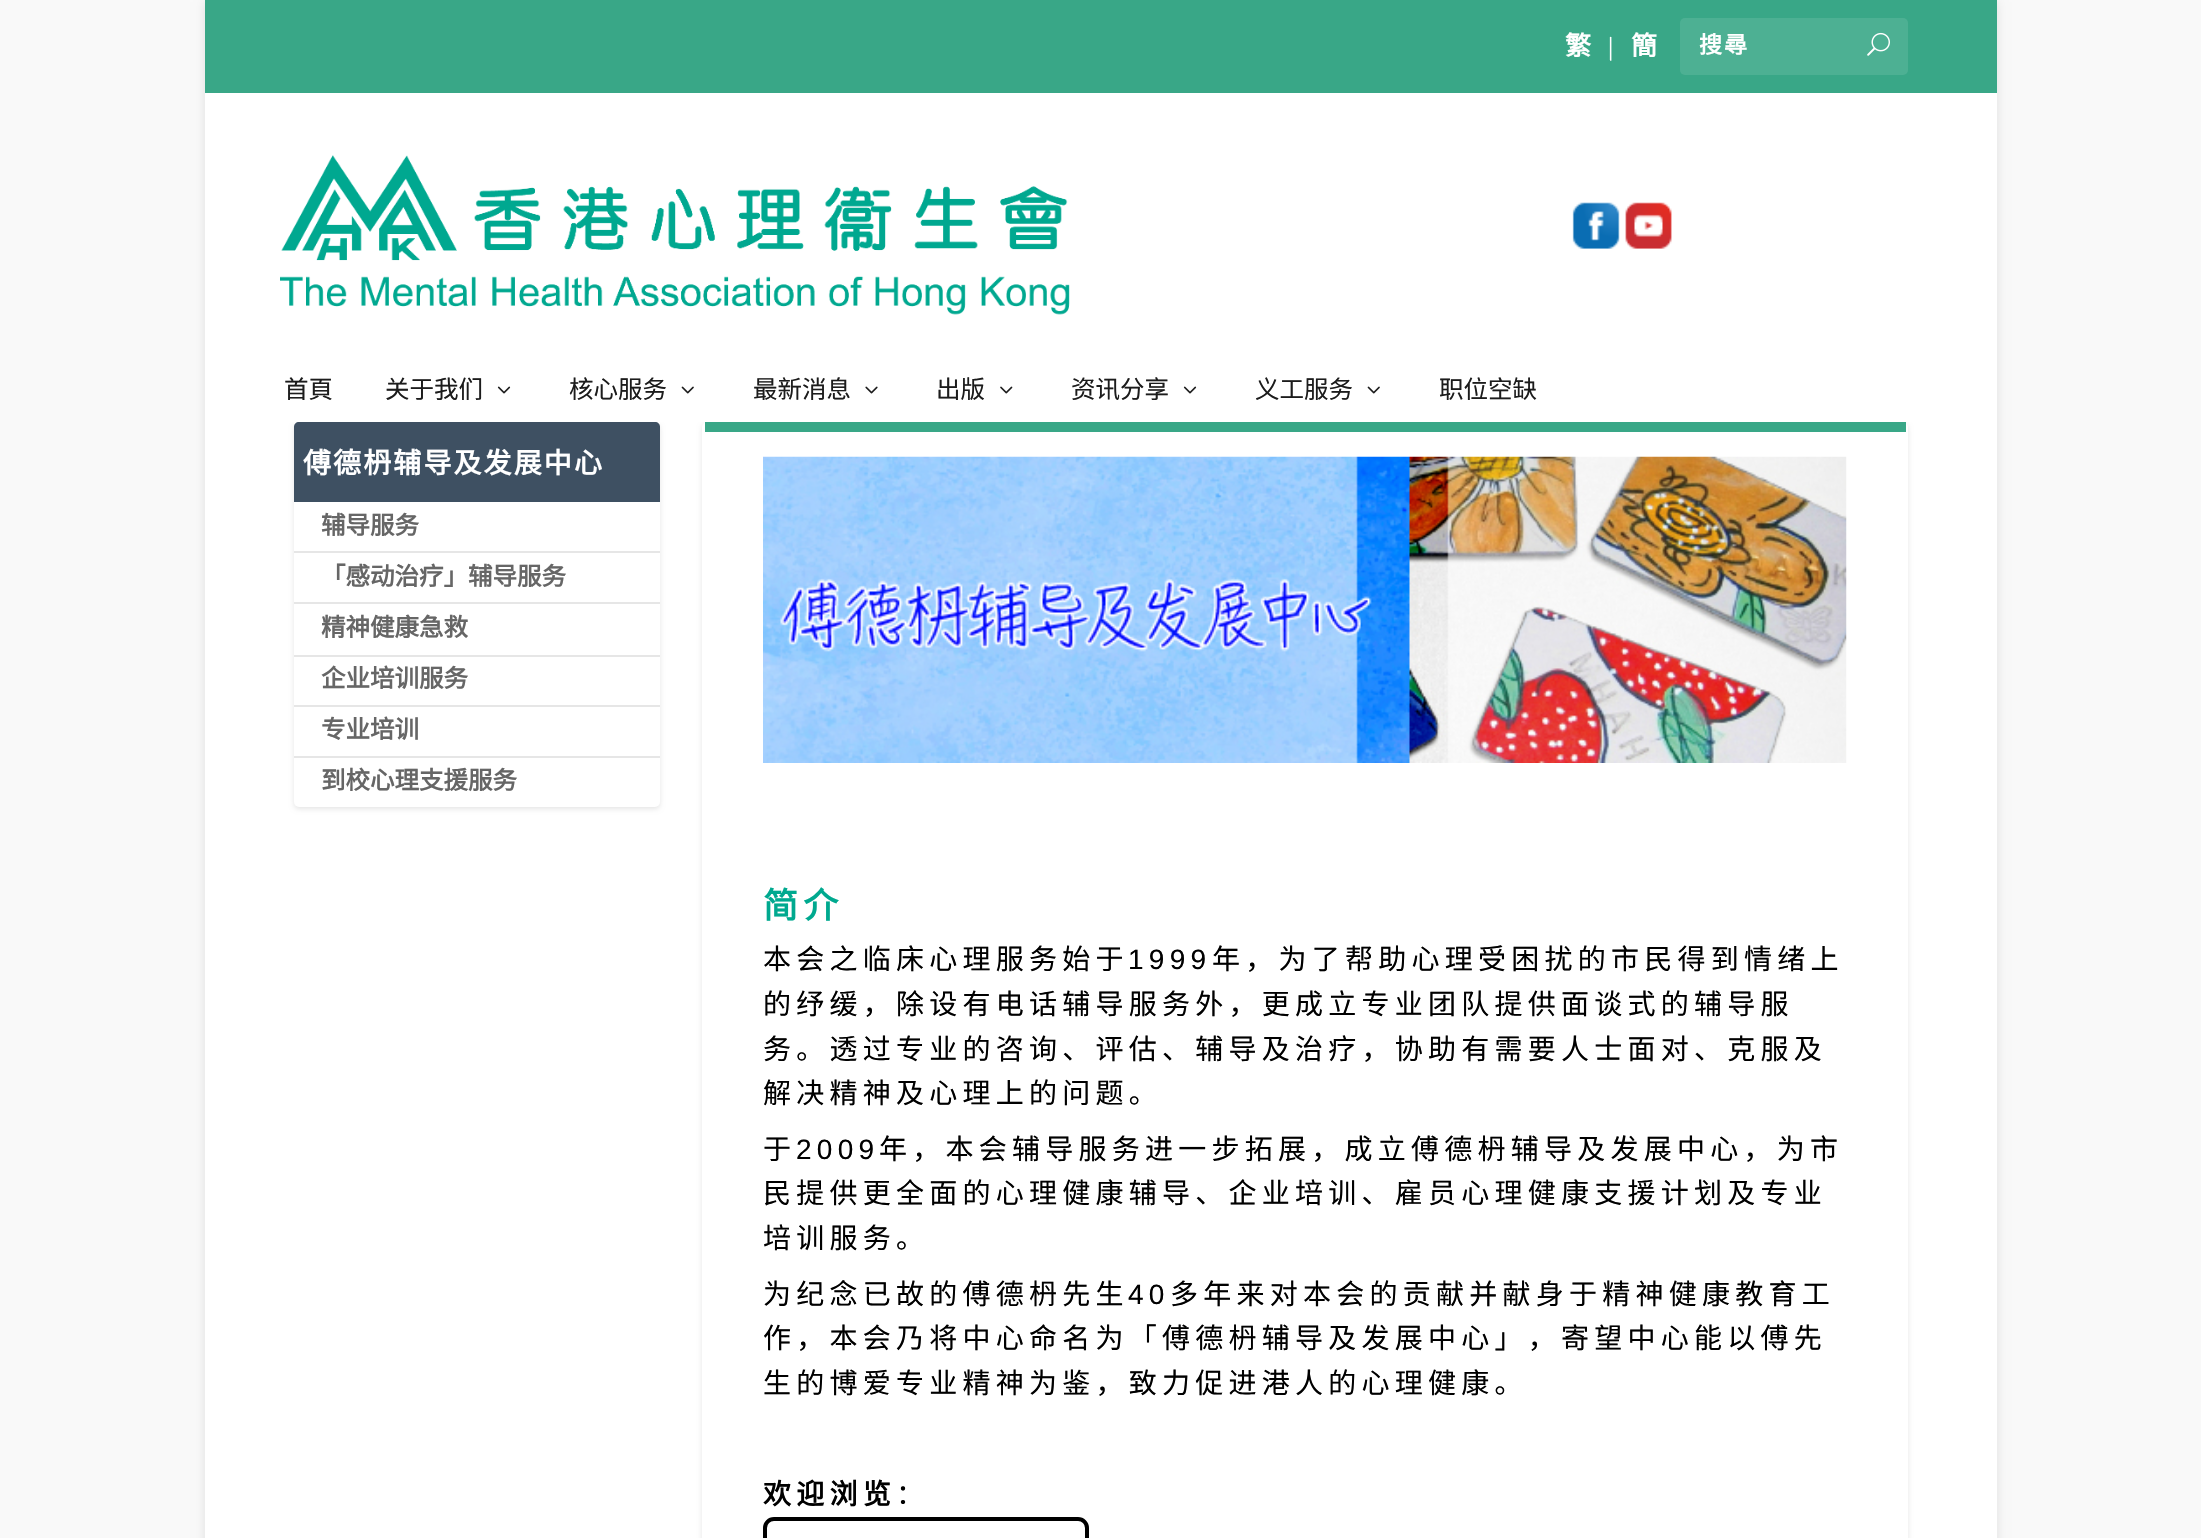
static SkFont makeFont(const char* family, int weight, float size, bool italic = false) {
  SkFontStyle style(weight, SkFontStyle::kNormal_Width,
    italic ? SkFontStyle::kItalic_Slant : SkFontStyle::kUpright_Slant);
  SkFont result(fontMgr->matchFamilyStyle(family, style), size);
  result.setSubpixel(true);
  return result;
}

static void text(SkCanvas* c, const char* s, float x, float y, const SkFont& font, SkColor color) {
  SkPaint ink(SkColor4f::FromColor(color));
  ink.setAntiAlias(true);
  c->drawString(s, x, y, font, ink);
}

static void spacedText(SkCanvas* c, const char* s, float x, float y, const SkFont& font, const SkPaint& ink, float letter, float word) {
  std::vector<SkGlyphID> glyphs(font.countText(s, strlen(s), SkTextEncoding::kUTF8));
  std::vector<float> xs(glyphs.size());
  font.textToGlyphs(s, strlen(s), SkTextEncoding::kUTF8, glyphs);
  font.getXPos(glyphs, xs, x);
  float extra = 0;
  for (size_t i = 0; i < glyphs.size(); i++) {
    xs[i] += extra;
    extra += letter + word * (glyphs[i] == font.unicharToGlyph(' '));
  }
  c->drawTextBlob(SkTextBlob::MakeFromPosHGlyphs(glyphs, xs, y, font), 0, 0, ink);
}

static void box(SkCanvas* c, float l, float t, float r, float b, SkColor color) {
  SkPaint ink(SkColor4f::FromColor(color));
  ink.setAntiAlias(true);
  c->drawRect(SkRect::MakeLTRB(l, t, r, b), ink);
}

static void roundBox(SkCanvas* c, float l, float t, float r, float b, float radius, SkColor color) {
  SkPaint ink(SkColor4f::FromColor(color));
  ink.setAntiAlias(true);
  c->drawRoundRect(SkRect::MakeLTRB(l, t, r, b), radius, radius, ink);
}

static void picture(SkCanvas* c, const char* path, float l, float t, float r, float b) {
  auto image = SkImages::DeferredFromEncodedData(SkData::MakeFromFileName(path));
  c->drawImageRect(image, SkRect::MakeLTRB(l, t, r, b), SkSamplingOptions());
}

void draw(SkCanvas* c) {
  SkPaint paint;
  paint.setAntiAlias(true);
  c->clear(0xfff9f9f9);
  paint.setColor(0x1a000000);
  paint.setMaskFilter(SkMaskFilter::MakeBlur(kNormal_SkBlurStyle, 5));
  c->drawRect(SkRect::MakeLTRB(205, 2, 1997, 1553), paint);
  paint.setMaskFilter(nullptr);
  box(c, 205, 422, 1997, 1538, 0xffffffff);
  box(c, 205, 0, 1997, 93, 0xff39a787);
  SkFont face1 = makeFont("Noto Sans CJK SC", 700, 26);
  paint.setColor(0xffffffff);
  spacedText(c, "繁", 1565, 55, face1, paint, 5.25f, 0);
  SkFont face2 = makeFont("Liberation Serif", 400, 26);
  spacedText(c, "|", 1608, 55, face2, paint, 5.25f, 0);
  spacedText(c, "簡", 1631, 55, face1, paint, 5.25f, 0);
  roundBox(c, 1680, 18, 1908, 75, 5, 0xff4db093);
  SkFont face3 = makeFont("Noto Sans CJK SC", 700, 23);
  spacedText(c, "搜尋", 1699, 53, face3, paint, 2.1f, 0);
  picture(c, "img_01.png", 1867, 32, 1890, 56);
  paint.setColor(0x1a000000);
  paint.setMaskFilter(SkMaskFilter::MakeBlur(kNormal_SkBlurStyle, 2.5f));
  c->drawRoundRect(SkRect::MakeLTRB(294, 424, 660, 809), 5, 5, paint);
  paint.setMaskFilter(nullptr);
  paint.setMaskFilter(SkMaskFilter::MakeBlur(kNormal_SkBlurStyle, 2.5f));
  c->drawRoundRect(SkRect::MakeLTRB(702, 424, 1908, 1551), 5, 5, paint);
  paint.setMaskFilter(nullptr);
  box(c, 205, 93, 1997, 422, 0xffffffff);
  picture(c, "img_02.png", 280, 155, 1070, 315);
  picture(c, "img_03.png", 1572, 202, 1620, 249);
  picture(c, "img_04.png", 1625, 202, 1672, 249);
  SkFont face4 = makeFont("Noto Sans CJK SC", 400, 24.5f);
  text(c, "首頁", 284, 398, face4, 0xff1c1c1c);
  text(c, "关于我们", 385, 398, face4, 0xff1c1c1c);
  picture(c, "img_05.png", 497, 386, 511, 394);
  text(c, "核心服务", 569, 398, face4, 0xff1c1c1c);
  picture(c, "img_06.png", 681, 386, 694, 394);
  text(c, "最新消息", 753, 398, face4, 0xff1c1c1c);
  picture(c, "img_07.png", 865, 386, 878, 394);
  text(c, "出版", 936, 398, face4, 0xff1c1c1c);
  picture(c, "img_08.png", 1000, 386, 1013, 394);
  text(c, "资讯分享", 1071, 398, face4, 0xff1c1c1c);
  picture(c, "img_05.png", 1183, 386, 1197, 394);
  text(c, "义工服务", 1255, 398, face4, 0xff1c1c1c);
  picture(c, "img_06.png", 1367, 386, 1380, 394);
  text(c, "职位空缺", 1439, 398, face4, 0xff1c1c1c);
  roundBox(c, 294, 422, 660, 807, 5, 0xffffffff);
  paint.setColor(0xff3e5062);
  c->drawPath(SkPathBuilder().moveTo(299, 422).lineTo(655, 422).cubicTo(658, 422, 660, 424, 660, 427).lineTo(660, 502).lineTo(294, 502).lineTo(294, 427).cubicTo(294, 424, 296, 422, 299, 422).close().detach(), paint);
  SkFont face5 = makeFont("Noto Sans CJK SC", 700, 28);
  paint.setColor(0xffffffff);
  spacedText(c, "傅德枬辅导及发展中心", 303, 473, face5, paint, 2.1f, 0);
  box(c, 294, 551, 660, 553, 0xffe6e6e6);
  SkFont face6 = makeFont("Noto Sans CJK SC", 700, 24.5f);
  text(c, "辅导服务", 321, 534, face6, 0xff666666);
  box(c, 294, 602, 660, 604, 0xffe6e6e6);
  text(c, "「感动治疗」辅导服务", 321, 585, face6, 0xff666666);
  box(c, 294, 655, 660, 657, 0xffe6e6e6);
  text(c, "精神健康急救", 321, 636, face6, 0xff666666);
  box(c, 294, 705, 660, 707, 0xffe6e6e6);
  text(c, "企业培训服务", 321, 687, face6, 0xff666666);
  box(c, 294, 756, 660, 758, 0xffe6e6e6);
  text(c, "专业培训", 321, 738, face6, 0xff666666);
  text(c, "到校心理支援服务", 321, 789, face6, 0xff666666);
  roundBox(c, 702, 422, 1908, 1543, 5, 0xffffffff);
  box(c, 705, 422, 1906, 432, 0xff39a787);
  picture(c, "img_09.png", 763, 456, 1847, 763);
  SkFont face7 = makeFont("Noto Sans CJK SC", 700, 35);
  paint.setColor(0xff00a98f);
  spacedText(c, "简介", 763, 918, face7, paint, 5.25f, 0);
  SkFont face8 = makeFont("Noto Sans CJK SC", 400, 28);
  paint.setColor(0xff000000);
  spacedText(c, "本会之临床心理服务始于", 763, 969, face8, paint, 5.25f, 0);
  SkFont face9 = makeFont("Liberation Sans", 400, 28);
  spacedText(c, "1999", 1128, 969, face9, paint, 5.25f, 0);
  spacedText(c, "年，为了帮助心理受困扰的市民得到情绪上", 1212, 969, face8, paint, 5.25f, 0);
  spacedText(c, "的纾缓，除设有电话辅导服务外，更成立专业团队提供面谈式的辅导服", 763, 1014, face8, paint, 5.25f, 0);
  spacedText(c, "务。透过专业的咨询、评估、辅导及治疗，协助有需要人士面对、克服及", 763, 1059, face8, paint, 5.25f, 0);
  spacedText(c, "解决精神及心理上的问题。", 763, 1103, face8, paint, 5.25f, 0);
  spacedText(c, "于", 763, 1159, face8, paint, 5.25f, 0);
  spacedText(c, "2009", 796, 1159, face9, paint, 5.25f, 0);
  spacedText(c, "年，本会辅导服务进一步拓展，成立傅德枬辅导及发展中心，为市", 879, 1159, face8, paint, 5.25f, 0);
  spacedText(c, "民提供更全面的心理健康辅导、企业培训、雇员心理健康支援计划及专业", 763, 1203, face8, paint, 5.25f, 0);
  spacedText(c, "培训服务。", 763, 1248, face8, paint, 5.25f, 0);
  spacedText(c, "为纪念已故的傅德枬先生", 763, 1304, face8, paint, 5.25f, 0);
  spacedText(c, "40", 1128, 1304, face9, paint, 5.25f, 0);
  spacedText(c, "多年来对本会的贡献并献身于精神健康教育工", 1170, 1304, face8, paint, 5.25f, 0);
  spacedText(c, "作，本会乃将中心命名为「傅德枬辅导及发展中心」，寄望中心能以傅先", 763, 1348, face8, paint, 5.25f, 0);
  spacedText(c, "生的博爱专业精神为鉴，致力促进港人的心理健康。", 763, 1393, face8, paint, 5.25f, 0);
  spacedText(c, "欢迎浏览", 763, 1504, face5, paint, 5.25f, 0);
  spacedText(c, "：", 896, 1504, face8, paint, 5.25f, 0);
  paint.setStyle(SkPaint::kStroke_Style);
  paint.setStrokeWidth(4);
  c->drawRoundRect(SkRect::MakeLTRB(765, 1519, 1087, 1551), 9, 9, paint);
}
